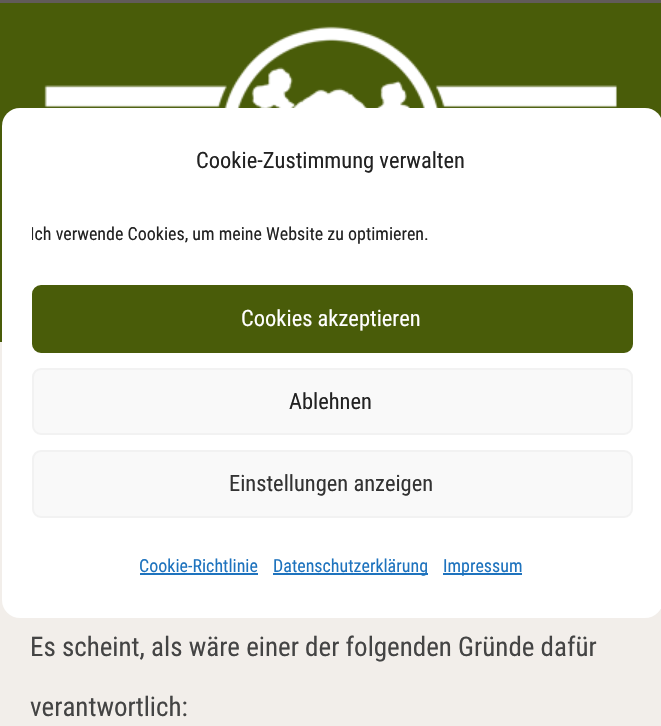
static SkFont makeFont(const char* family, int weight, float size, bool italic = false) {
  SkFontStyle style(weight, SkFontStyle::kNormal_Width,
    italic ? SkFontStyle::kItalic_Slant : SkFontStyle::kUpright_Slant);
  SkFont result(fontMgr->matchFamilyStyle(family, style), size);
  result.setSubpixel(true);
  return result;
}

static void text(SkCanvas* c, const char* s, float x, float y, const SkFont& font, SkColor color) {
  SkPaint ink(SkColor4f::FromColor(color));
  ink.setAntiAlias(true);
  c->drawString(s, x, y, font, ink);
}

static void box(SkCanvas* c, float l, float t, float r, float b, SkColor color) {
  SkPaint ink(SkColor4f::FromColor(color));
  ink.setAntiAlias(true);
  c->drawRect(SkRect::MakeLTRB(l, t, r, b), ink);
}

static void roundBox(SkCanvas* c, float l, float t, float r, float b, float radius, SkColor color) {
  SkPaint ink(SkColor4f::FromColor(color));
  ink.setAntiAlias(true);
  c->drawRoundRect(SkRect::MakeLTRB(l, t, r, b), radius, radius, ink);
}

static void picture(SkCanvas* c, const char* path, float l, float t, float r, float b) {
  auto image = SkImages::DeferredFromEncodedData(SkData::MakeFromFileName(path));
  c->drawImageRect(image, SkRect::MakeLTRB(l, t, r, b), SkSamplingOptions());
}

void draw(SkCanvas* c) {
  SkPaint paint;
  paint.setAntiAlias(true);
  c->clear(0xff495c09);
  box(c, 0, 342, 661, 726, 0xfff2eeea);
  roundBox(c, 2, 108, 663, 618, 18, 0xffffffff);
  SkFont face1 = makeFont("Roboto Condensed", 400, 22.5f);
  text(c, "Cookie-Zustimmung verwalten", 196, 168, face1, 0xff222222);
  c->save();
  c->clipRect(SkRect::MakeLTRB(32, 221, 633, 255));
  SkFont face2 = makeFont("Roboto Condensed", 400, 18);
  text(c, "Ich verwende Cookies, um meine Website zu optimieren.", 30, 240, face2, 0xff222222);
  c->restore();
  paint.setColor(0xff495c09);
  c->drawRoundRect(SkRect::MakeLTRB(33, 286, 632, 352), 8, 8, paint);
  paint.setStyle(SkPaint::kStroke_Style);
  paint.setStrokeWidth(2);
  c->drawRoundRect(SkRect::MakeLTRB(33, 286, 632, 352), 8, 8, paint);
  text(c, "Cookies akzeptieren", 241, 326, face1, 0xffffffff);
  paint.setStyle(SkPaint::kFill_Style);
  paint.setColor(0xfff9f9f9);
  c->drawRoundRect(SkRect::MakeLTRB(33, 369, 632, 434), 8, 8, paint);
  paint.setStyle(SkPaint::kStroke_Style);
  paint.setColor(0xfff2f2f2);
  c->drawRoundRect(SkRect::MakeLTRB(33, 369, 632, 434), 8, 8, paint);
  text(c, "Ablehnen", 289, 409, face1, 0xff222222);
  paint.setStyle(SkPaint::kFill_Style);
  paint.setColor(0xfff9f9f9);
  c->drawRoundRect(SkRect::MakeLTRB(33, 451, 632, 517), 8, 8, paint);
  paint.setStyle(SkPaint::kStroke_Style);
  paint.setColor(0xfff2f2f2);
  c->drawRoundRect(SkRect::MakeLTRB(33, 451, 632, 517), 8, 8, paint);
  text(c, "Einstellungen anzeigen", 229, 491, face1, 0xff333333);
  text(c, "Cookie-Richtlinie", 139, 572, face2, 0xff1e73be);
  box(c, 140, 573, 258, 575, 0xff1e73be);
  box(c, 273, 573, 428, 575, 0xff1e73be);
  text(c, "Datenschutzerklärung", 273, 572, face2, 0xff1e73be);
  box(c, 443, 573, 522, 575, 0xff1e73be);
  text(c, "Impressum", 443, 572, face2, 0xff1e73be);
  box(c, 0, 0, 661, 3, 0xff615b59);
  picture(c, "img_01.png", 44, 26, 617, 108);
  SkFont face3 = makeFont("Roboto Condensed", 400, 27);
  text(c, "Es scheint, als wäre einer der folgenden Gründe dafür", 30, 656, face3, 0xff444444);
  text(c, "verantwortlich:", 30, 716, face3, 0xff444444);
}
